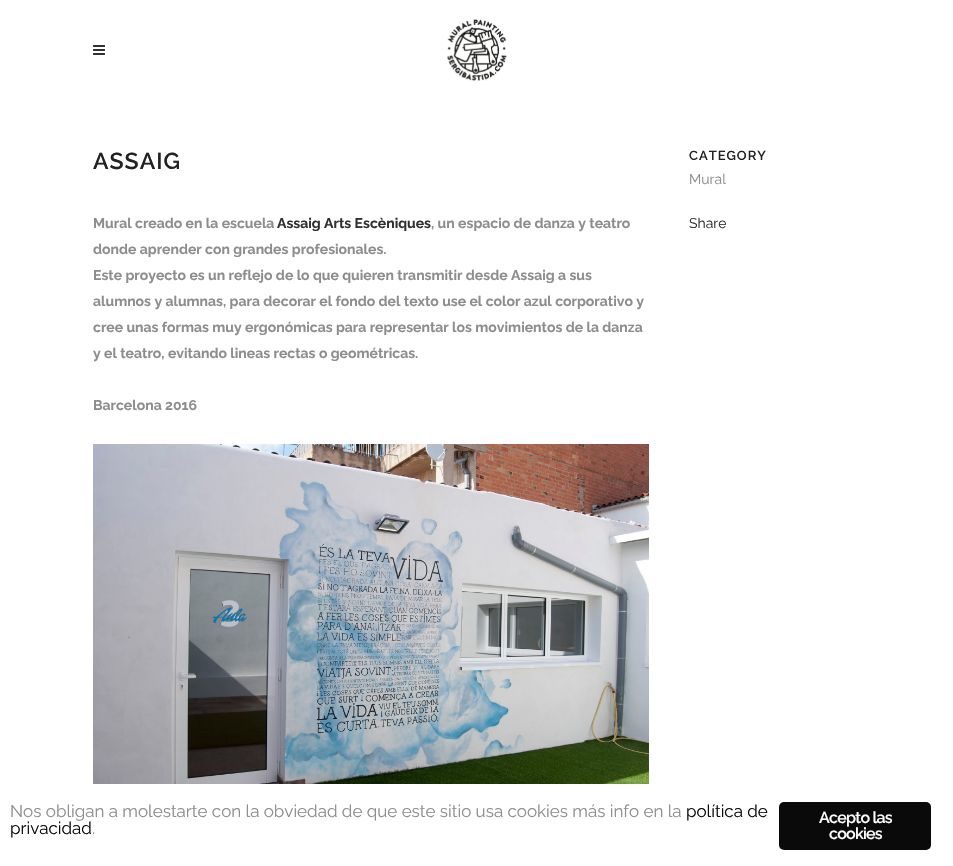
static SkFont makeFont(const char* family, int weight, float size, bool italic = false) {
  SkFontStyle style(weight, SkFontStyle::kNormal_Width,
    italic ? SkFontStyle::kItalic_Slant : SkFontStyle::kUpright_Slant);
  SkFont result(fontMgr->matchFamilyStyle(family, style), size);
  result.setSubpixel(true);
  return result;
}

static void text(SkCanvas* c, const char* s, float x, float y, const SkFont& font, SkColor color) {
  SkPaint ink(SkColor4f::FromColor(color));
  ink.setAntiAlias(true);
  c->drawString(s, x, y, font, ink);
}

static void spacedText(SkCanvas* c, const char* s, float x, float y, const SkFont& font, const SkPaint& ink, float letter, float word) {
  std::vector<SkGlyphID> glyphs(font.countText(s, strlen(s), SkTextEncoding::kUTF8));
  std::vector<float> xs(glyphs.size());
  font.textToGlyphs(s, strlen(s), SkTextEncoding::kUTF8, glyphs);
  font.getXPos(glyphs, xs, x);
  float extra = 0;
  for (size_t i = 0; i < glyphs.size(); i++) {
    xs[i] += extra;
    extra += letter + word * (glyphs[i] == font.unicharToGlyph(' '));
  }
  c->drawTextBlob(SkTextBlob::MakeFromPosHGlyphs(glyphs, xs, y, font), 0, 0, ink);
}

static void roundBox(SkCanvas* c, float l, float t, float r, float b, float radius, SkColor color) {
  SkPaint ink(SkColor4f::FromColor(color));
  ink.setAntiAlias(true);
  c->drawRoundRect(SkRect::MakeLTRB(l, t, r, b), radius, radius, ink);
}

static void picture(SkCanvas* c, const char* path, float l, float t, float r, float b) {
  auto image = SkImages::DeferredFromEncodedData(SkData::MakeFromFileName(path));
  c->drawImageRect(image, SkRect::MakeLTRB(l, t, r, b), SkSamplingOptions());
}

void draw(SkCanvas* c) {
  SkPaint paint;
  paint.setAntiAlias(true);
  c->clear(0xffffffff);
  picture(c, "img_01.png", 93, 45, 105, 55);
  picture(c, "img_02.png", 447, 19, 507, 81);
  SkFont face1 = makeFont("Raleway", 600, 23);
  paint.setColor(0xff222222);
  spacedText(c, "ASSAIG", 93, 169, face1, paint, 1, 0);
  SkFont face2 = makeFont("Raleway", 700, 14);
  text(c, "Mural creado en la escuela", 93, 228, face2, 0xff8d8d8d);
  text(c, "Assaig Arts Escèniques", 277, 228, face2, 0xff303030);
  text(c, ", un espacio de danza y teatro", 431, 228, face2, 0xff8d8d8d);
  text(c, "donde aprender con grandes profesionales.", 93, 254, face2, 0xff8d8d8d);
  text(c, "Este proyecto es un reflejo de lo que quieren transmitir desde Assaig a sus", 93, 280, face2, 0xff8d8d8d);
  text(c, "alumnos y alumnas, para decorar el fondo del texto use el color azul corporativo y", 93, 306, face2, 0xff8d8d8d);
  text(c, "cree unas formas muy ergonómicas para representar los movimientos de la danza", 93, 332, face2, 0xff8d8d8d);
  text(c, "y el teatro, evitando lineas rectas o geométricas.", 93, 358, face2, 0xff8d8d8d);
  text(c, "Barcelona 2016", 93, 410, face2, 0xff8d8d8d);
  picture(c, "img_03.png", 93, 444, 649, 784);
  SkFont face3 = makeFont("Raleway", 600, 13);
  spacedText(c, "CATEGORY", 689, 160, face3, paint, 1, 0);
  SkFont face4 = makeFont("Raleway", 400, 14);
  text(c, "Mural", 689, 184, face4, 0xff8d8d8d);
  text(c, "Share", 689, 228, face4, 0xff303030);
  SkFont face5 = makeFont("Raleway", 400, 17);
  text(c, "Nos obligan a molestarte con la obviedad de que este sitio usa cookies más info en la", 10, 817, face5, 0xff8d8d8d);
  text(c, "política de", 686, 817, face5, 0xff0a0a0a);
  text(c, "privacidad", 10, 834, face5, 0xff0a0a0a);
  text(c, ".", 92, 834, face5, 0xff8d8d8d);
  roundBox(c, 779, 802, 931, 850, 5, 0xff0a0a0a);
  SkFont face6 = makeFont("Raleway", 600, 16);
  paint.setColor(0xffffffff);
  spacedText(c, "Acepto las", 819, 823, face6, paint, -0.75f, 0);
  spacedText(c, "cookies", 829, 839, face6, paint, -0.75f, 0);
}
